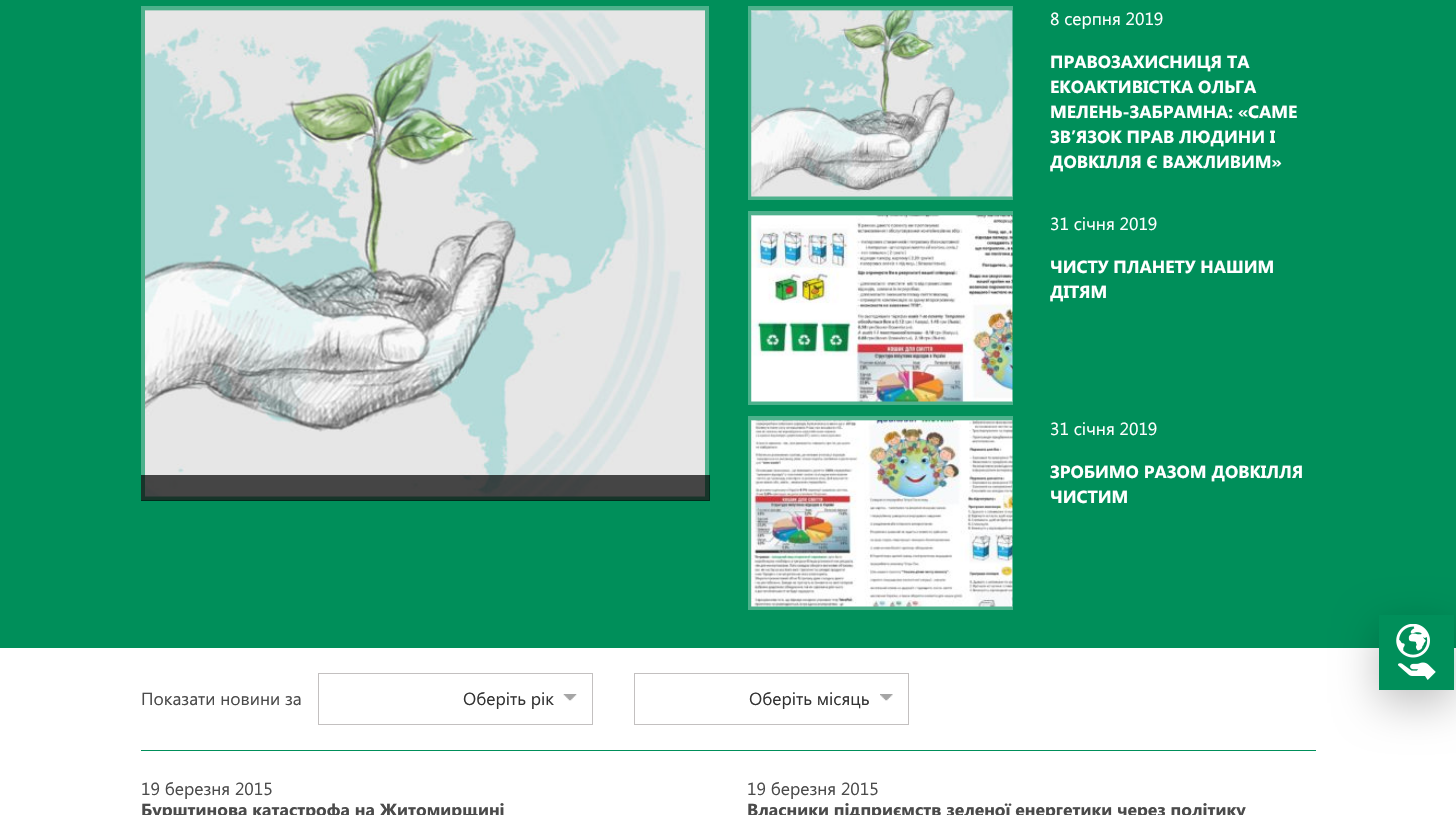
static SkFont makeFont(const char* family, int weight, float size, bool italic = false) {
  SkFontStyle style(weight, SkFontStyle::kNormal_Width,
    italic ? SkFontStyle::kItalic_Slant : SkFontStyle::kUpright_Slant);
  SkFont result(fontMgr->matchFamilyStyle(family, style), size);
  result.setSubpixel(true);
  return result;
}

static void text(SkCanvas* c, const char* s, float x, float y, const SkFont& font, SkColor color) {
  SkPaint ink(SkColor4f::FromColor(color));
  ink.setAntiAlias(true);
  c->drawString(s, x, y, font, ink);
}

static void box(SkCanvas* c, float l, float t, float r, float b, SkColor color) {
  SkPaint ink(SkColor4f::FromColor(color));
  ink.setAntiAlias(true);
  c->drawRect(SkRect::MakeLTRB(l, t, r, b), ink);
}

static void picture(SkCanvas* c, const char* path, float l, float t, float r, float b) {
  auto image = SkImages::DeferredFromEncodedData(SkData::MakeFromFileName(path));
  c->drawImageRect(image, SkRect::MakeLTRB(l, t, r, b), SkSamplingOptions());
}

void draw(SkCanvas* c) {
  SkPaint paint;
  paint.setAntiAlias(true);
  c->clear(0xffffffff);
  box(c, 0, 0, 1456, 648, 0xff008f5a);
  paint.setStyle(SkPaint::kStroke_Style);
  paint.setStrokeWidth(4);
  paint.setColor(0xff4db18c);
  c->drawRect(SkRect::MakeLTRB(143, 8, 707, 498), paint);
  picture(c, "img_01.png", 145, 10, 705, 497);
  box(c, 141, 475, 710, 501, 0xb3000000);
  c->save();
  c->clipRect(SkRect::MakeLTRB(748, 6, 1013, 200));
  c->drawRect(SkRect::MakeLTRB(750, 8, 1071, 198), paint);
  c->restore();
  picture(c, "img_02.png", 751, 10, 1013, 197);
  SkFont face1 = makeFont("Segoe UI", 400, 17.5f);
  text(c, "8 серпня 2019", 1050, 25, face1, 0xffffffff);
  SkFont face2 = makeFont("Segoe UI", 700, 17.5f);
  text(c, "ПРАВОЗАХИСНИЦЯ ТА", 1050, 68, face2, 0xffffffff);
  text(c, "ЕКОАКТИВІСТКА ОЛЬГА", 1050, 93, face2, 0xffffffff);
  text(c, "МЕЛЕНЬ-ЗАБРАМНА: «CАМЕ", 1050, 118, face2, 0xffffffff);
  text(c, "ЗВ’ЯЗОК ПРАВ ЛЮДИНИ І", 1050, 143, face2, 0xffffffff);
  text(c, "ДОВКІЛЛЯ Є ВАЖЛИВИМ»", 1050, 168, face2, 0xffffffff);
  c->save();
  c->clipRect(SkRect::MakeLTRB(748, 211, 1013, 405));
  c->drawRect(SkRect::MakeLTRB(750, 213, 1071, 403), paint);
  c->restore();
  picture(c, "img_03.png", 751, 215, 1013, 402);
  text(c, "31 січня 2019", 1050, 230, face1, 0xffffffff);
  text(c, "ЧИСТУ ПЛАНЕТУ НАШИМ", 1050, 273, face2, 0xffffffff);
  text(c, "ДІТЯМ", 1050, 298, face2, 0xffffffff);
  c->save();
  c->clipRect(SkRect::MakeLTRB(748, 416, 1013, 610));
  c->drawRect(SkRect::MakeLTRB(750, 418, 1071, 608), paint);
  c->restore();
  picture(c, "img_04.png", 751, 420, 1013, 607);
  text(c, "31 січня 2019", 1050, 435, face1, 0xffffffff);
  text(c, "ЗРОБИМО РАЗОМ ДОВКІЛЛЯ", 1050, 478, face2, 0xffffffff);
  text(c, "ЧИСТИМ", 1050, 503, face2, 0xffffffff);
  text(c, "Показати новини за", 141, 705, face1, 0xff4b4b4b);
  paint.setStrokeWidth(1);
  paint.setColor(0xffc3c0c0);
  c->drawRect(SkRect::MakeLTRB(318.5f, 673.5f, 592.5f, 724.5f), paint);
  text(c, "Оберіть рік", 463, 705, face1, 0xff333333);
  picture(c, "img_05.png", 563, 694, 577, 701);
  c->drawRect(SkRect::MakeLTRB(634.5f, 673.5f, 908.5f, 724.5f), paint);
  text(c, "Оберіть місяць", 749, 705, face1, 0xff333333);
  picture(c, "img_06.png", 880, 694, 893, 701);
  box(c, 141, 750, 1316, 751, 0xff008f5a);
  text(c, "19 березня 2015", 141, 795, face1, 0xff4b4b4b);
  text(c, "Бурштинова катастрофа на Житомирщині", 141, 816, face2, 0xff4b4b4b);
  text(c, "19 березня 2015", 747, 795, face1, 0xff4b4b4b);
  text(c, "Власники підприємств зеленої енергетики через політику", 747, 816, face2, 0xff4b4b4b);
  paint.setStyle(SkPaint::kFill_Style);
  paint.setColor(0x40000000);
  paint.setMaskFilter(SkMaskFilter::MakeBlur(kNormal_SkBlurStyle, 22));
  c->drawRect(SkRect::MakeLTRB(1379, 628, 1454, 703), paint);
  paint.setMaskFilter(nullptr);
  box(c, 1379, 615, 1454, 690, 0xff008f5a);
  picture(c, "img_07.png", 1396, 624, 1436, 680);
}
